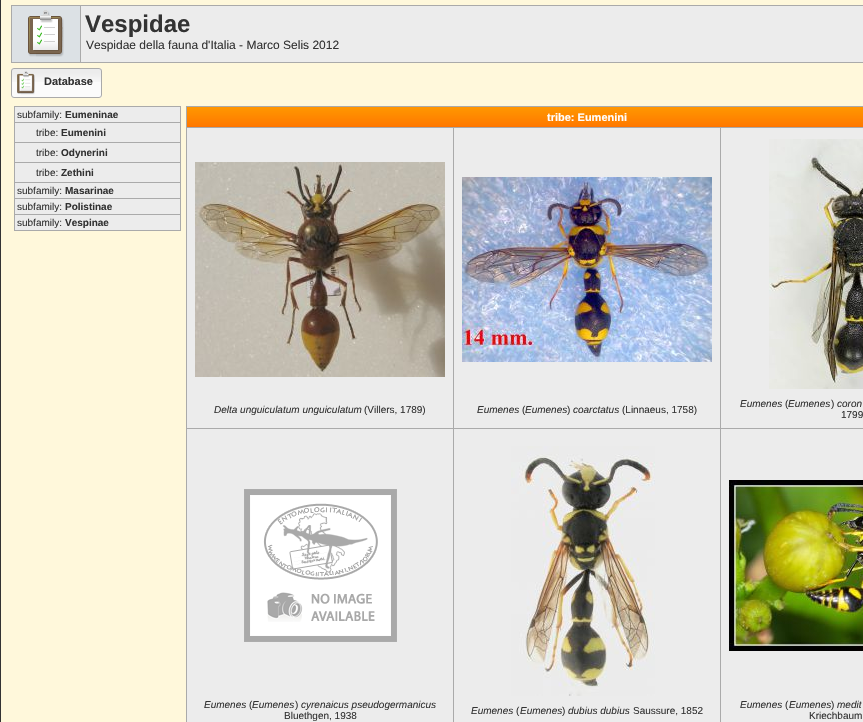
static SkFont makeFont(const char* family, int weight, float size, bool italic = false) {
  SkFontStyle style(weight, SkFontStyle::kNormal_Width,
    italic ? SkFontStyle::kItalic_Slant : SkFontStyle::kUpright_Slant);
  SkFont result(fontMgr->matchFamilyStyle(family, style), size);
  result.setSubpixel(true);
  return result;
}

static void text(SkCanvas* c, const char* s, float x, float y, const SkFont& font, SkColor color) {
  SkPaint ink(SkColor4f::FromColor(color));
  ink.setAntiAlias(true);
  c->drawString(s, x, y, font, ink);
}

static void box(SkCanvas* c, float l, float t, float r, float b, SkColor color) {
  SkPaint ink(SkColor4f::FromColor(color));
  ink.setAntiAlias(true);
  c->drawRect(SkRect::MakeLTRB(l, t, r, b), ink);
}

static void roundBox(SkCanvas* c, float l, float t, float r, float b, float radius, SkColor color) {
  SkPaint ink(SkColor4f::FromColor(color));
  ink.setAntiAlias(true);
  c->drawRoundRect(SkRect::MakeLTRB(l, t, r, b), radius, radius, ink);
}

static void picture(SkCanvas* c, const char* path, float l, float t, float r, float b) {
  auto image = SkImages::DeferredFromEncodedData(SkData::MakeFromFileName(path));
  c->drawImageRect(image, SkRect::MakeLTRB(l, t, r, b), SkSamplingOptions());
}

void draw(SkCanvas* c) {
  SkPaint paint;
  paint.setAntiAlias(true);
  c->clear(0xfffff8db);
  box(c, 0, 0, 1, 722, 0xff333333);
  box(c, 11, 5, 863, 63, 0xffaaaaaa);
  box(c, 12, 6, 80, 62, 0xffdce1e5);
  picture(c, "img_01.png", 28, 10, 64, 57);
  box(c, 81, 6, 863, 62, 0xffececec);
  SkFont face1 = makeFont("Liberation Sans", 700, 24);
  text(c, "Vespidae", 85, 32, face1, 0xff333333);
  SkFont face2 = makeFont("Liberation Sans", 400, 12);
  text(c, "Vespidae della fauna d'Italia - Marco Selis 2012", 86, 49, face2, 0xff333333);
  roundBox(c, 11, 68, 102, 98, 3, 0xfffbfbfb);
  picture(c, "img_02.png", 11, 69, 102, 82);
  paint.setStyle(SkPaint::kStroke_Style);
  paint.setStrokeWidth(1);
  paint.setColor(0xffaaaaaa);
  c->drawRoundRect(SkRect::MakeLTRB(11.5f, 68.5f, 101.5f, 97.5f), 2.5f, 2.5f, paint);
  picture(c, "img_03.png", 17, 71, 35, 95);
  SkFont face3 = makeFont("Liberation Sans", 700, 11);
  text(c, "Database", 44, 85, face3, 0xff333333);
  box(c, 14, 106, 181, 231, 0xffaaaaaa);
  box(c, 15, 107, 180, 122, 0xffececec);
  SkFont face4 = makeFont("Liberation Sans", 400, 10);
  text(c, "subfamily:", 17, 118, face4, 0xff333333);
  SkFont face5 = makeFont("Liberation Sans", 700, 10);
  text(c, "Eumeninae", 65, 118, face5, 0xff333333);
  box(c, 15, 123, 180, 142, 0xffececec);
  text(c, "tribe:", 36, 136, face4, 0xff333333);
  text(c, "Eumenini", 61, 136, face5, 0xff333333);
  box(c, 15, 143, 180, 162, 0xffececec);
  text(c, "tribe:", 36, 156, face4, 0xff333333);
  text(c, "Odynerini", 61, 156, face5, 0xff333333);
  box(c, 15, 163, 180, 182, 0xffececec);
  text(c, "tribe:", 36, 176, face4, 0xff333333);
  text(c, "Zethini", 61, 176, face5, 0xff333333);
  box(c, 15, 183, 180, 198, 0xffececec);
  text(c, "subfamily:", 17, 194, face4, 0xff333333);
  text(c, "Masarinae", 65, 194, face5, 0xff333333);
  box(c, 15, 199, 180, 214, 0xffececec);
  text(c, "subfamily:", 17, 210, face4, 0xff333333);
  text(c, "Polistinae", 65, 210, face5, 0xff333333);
  box(c, 15, 215, 180, 230, 0xffececec);
  text(c, "subfamily:", 17, 226, face4, 0xff333333);
  text(c, "Vespinae", 65, 226, face5, 0xff333333);
  box(c, 186, 106, 863, 722, 0xffaaaaaa);
  box(c, 187, 126, 863, 127, 0xffff7400);
  picture(c, "img_04.png", 187, 107, 863, 126);
  text(c, "tribe: Eumenini", 547, 121, face3, 0xffffffff);
  box(c, 187, 128, 453, 428, 0xffececec);
  picture(c, "img_05.png", 195, 162, 445, 377);
  SkFont face6 = makeFont("Liberation Sans", 400, 10, true);
  text(c, "Delta unguiculatum unguiculatum", 214, 413, face6, 0xff333333);
  text(c, "(Villers, 1789)", 364, 413, face4, 0xff333333);
  box(c, 454, 128, 720, 428, 0xffececec);
  picture(c, "img_06.png", 462, 177, 712, 362);
  text(c, "Eumenes", 477, 413, face6, 0xff333333);
  text(c, "(", 522, 413, face4, 0xff333333);
  text(c, "Eumenes", 525, 413, face6, 0xff333333);
  text(c, ")", 567, 413, face4, 0xff333333);
  text(c, "coarctatus", 573, 413, face6, 0xff333333);
  text(c, "(Linnaeus, 1758)", 622, 413, face4, 0xff333333);
  box(c, 721, 128, 863, 428, 0xffececec);
  picture(c, "img_07.png", 769, 139, 863, 389);
  text(c, "Eumenes", 740, 407, face6, 0xff333333);
  text(c, "(", 785, 407, face4, 0xff333333);
  text(c, "Eumenes", 788, 407, face6, 0xff333333);
  text(c, ")", 831, 407, face4, 0xff333333);
  text(c, "coron", 837, 407, face6, 0xff333333);
  text(c, "1799", 841, 418, face4, 0xff333333);
  box(c, 187, 429, 453, 722, 0xffececec);
  picture(c, "img_08.png", 244, 489, 397, 642);
  text(c, "Eumenes", 204, 708, face6, 0xff333333);
  text(c, "(", 249, 708, face4, 0xff333333);
  text(c, "Eumenes", 252, 708, face6, 0xff333333);
  text(c, ")", 295, 708, face4, 0xff333333);
  text(c, "cyrenaicus pseudogermanicus", 301, 708, face6, 0xff333333);
  text(c, "Bluethgen, 1938", 284, 719, face4, 0xff333333);
  box(c, 454, 429, 720, 722, 0xffececec);
  picture(c, "img_09.png", 511, 446, 655, 696);
  text(c, "Eumenes", 471, 714, face6, 0xff333333);
  text(c, "(", 516, 714, face4, 0xff333333);
  text(c, "Eumenes", 520, 714, face6, 0xff333333);
  text(c, ")", 562, 714, face4, 0xff333333);
  text(c, "dubius dubius", 568, 714, face6, 0xff333333);
  text(c, "Saussure, 1852", 633, 714, face4, 0xff333333);
  box(c, 721, 429, 863, 722, 0xffececec);
  picture(c, "img_10.png", 729, 480, 863, 651);
  text(c, "Eumenes", 740, 708, face6, 0xff333333);
  text(c, "(", 785, 708, face4, 0xff333333);
  text(c, "Eumenes", 789, 708, face6, 0xff333333);
  text(c, ")", 831, 708, face4, 0xff333333);
  text(c, "medit", 837, 708, face6, 0xff333333);
  text(c, "Kriechbaum", 809, 719, face4, 0xff333333);
}
